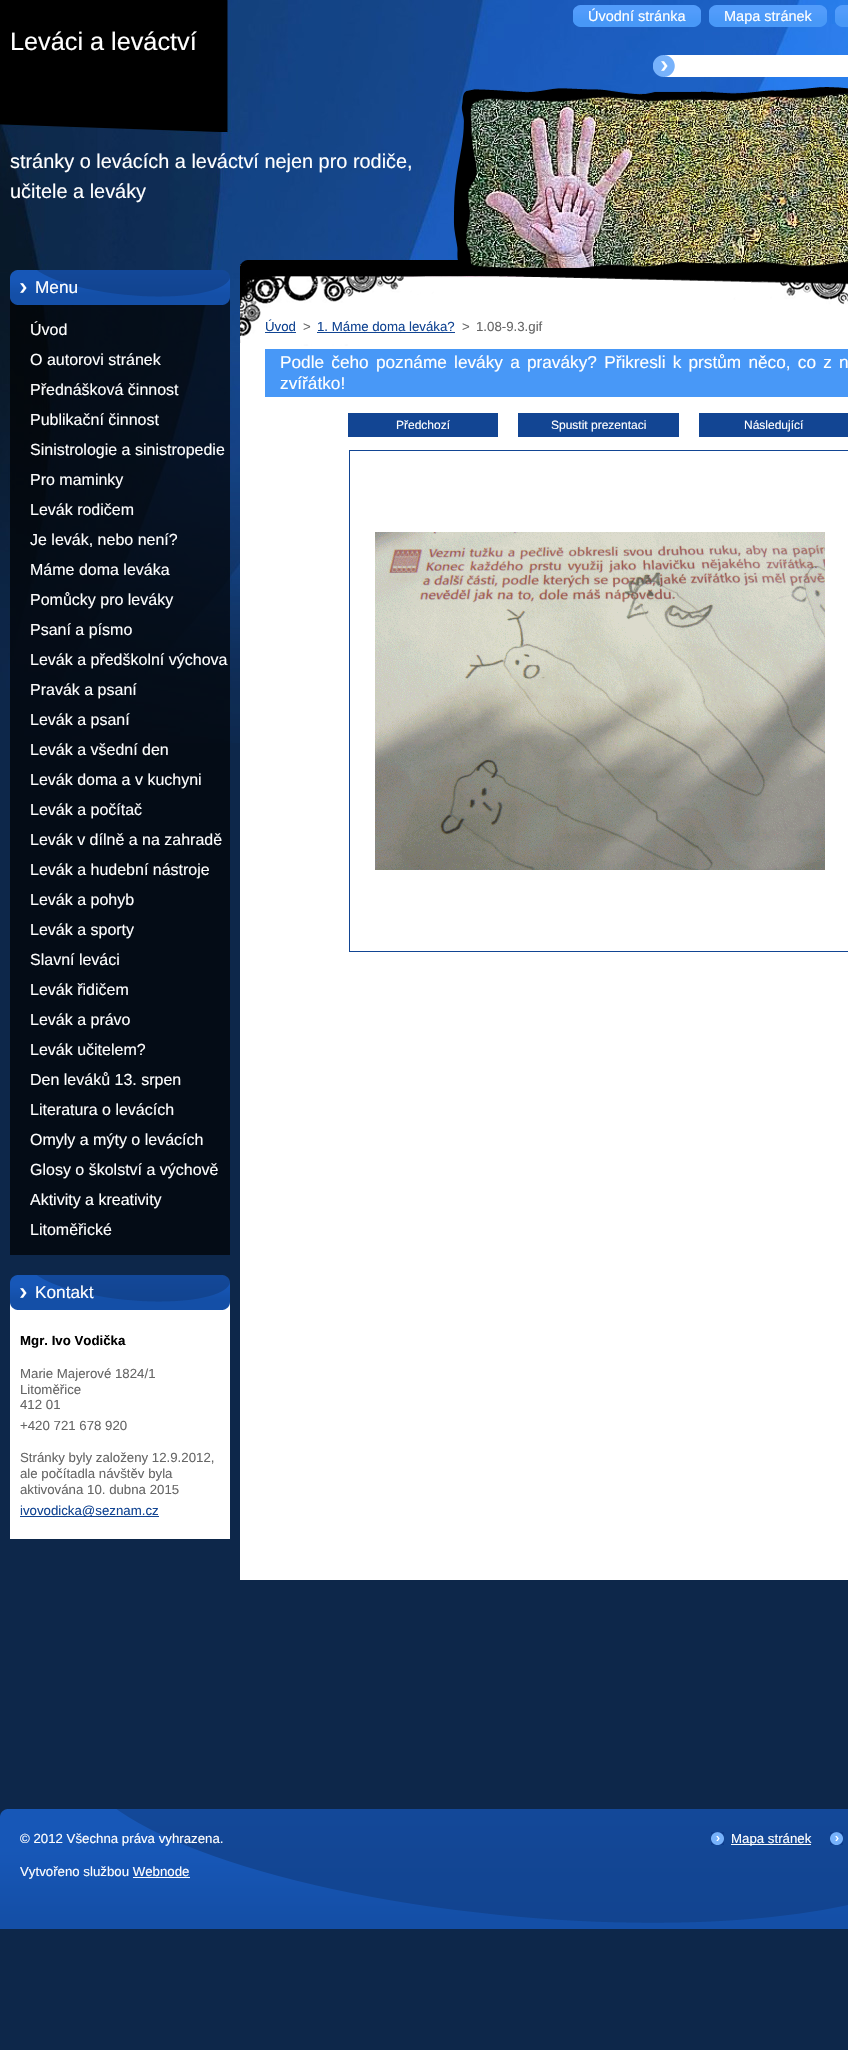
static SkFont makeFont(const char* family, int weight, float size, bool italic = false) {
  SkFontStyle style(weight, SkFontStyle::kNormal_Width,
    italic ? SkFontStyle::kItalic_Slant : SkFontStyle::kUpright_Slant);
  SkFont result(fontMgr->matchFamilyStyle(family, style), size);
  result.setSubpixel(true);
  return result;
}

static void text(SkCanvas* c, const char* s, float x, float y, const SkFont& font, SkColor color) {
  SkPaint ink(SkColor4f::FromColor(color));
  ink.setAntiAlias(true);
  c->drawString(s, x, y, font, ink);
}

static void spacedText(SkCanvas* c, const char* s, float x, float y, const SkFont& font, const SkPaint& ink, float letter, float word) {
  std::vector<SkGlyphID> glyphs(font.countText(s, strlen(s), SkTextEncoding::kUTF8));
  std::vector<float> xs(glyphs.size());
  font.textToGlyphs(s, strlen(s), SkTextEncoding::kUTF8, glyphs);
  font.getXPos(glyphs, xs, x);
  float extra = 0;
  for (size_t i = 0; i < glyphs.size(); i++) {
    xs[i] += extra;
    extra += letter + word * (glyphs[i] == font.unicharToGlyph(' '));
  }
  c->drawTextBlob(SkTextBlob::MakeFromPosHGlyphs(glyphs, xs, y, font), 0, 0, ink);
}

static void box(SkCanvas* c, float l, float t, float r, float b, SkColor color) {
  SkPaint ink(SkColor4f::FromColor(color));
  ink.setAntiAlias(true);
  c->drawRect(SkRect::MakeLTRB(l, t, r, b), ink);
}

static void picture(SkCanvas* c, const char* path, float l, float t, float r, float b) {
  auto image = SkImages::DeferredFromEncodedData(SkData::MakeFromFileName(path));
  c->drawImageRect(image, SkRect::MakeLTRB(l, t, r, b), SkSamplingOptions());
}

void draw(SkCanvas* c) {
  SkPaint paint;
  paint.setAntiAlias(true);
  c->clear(0xff0d274a);
  picture(c, "img_01.png", 0, 0, 848, 743);
  picture(c, "img_02.png", 0, 0, 228, 132);
  box(c, 240, 265, 848, 1580, 0xffffffff);
  picture(c, "img_03.png", 573, 5, 588, 27);
  picture(c, "img_04.png", 588, 5, 686, 27);
  SkFont face1 = makeFont("Liberation Sans", 400, 14.5f);
  text(c, "Úvodní stránka", 588, 21, face1, 0xffffffff);
  picture(c, "img_05.png", 686, 5, 701, 27);
  picture(c, "img_06.png", 709, 5, 724, 27);
  picture(c, "img_07.png", 724, 5, 812, 27);
  text(c, "Mapa stránek", 724, 21, face1, 0xffffffff);
  picture(c, "img_08.png", 812, 5, 827, 27);
  picture(c, "img_09.png", 835, 5, 848, 27);
  SkFont face2 = makeFont("Liberation Sans", 400, 25.25f);
  text(c, "Leváci a leváctví", 10, 50, face2, 0xffffffff);
  picture(c, "img_10.png", 653, 55, 848, 77);
  picture(c, "img_11.png", 240, 260, 848, 270);
  SkFont face3 = makeFont("Liberation Sans", 400, 19.9f);
  text(c, "stránky o levácích a leváctví nejen pro rodiče,", 10, 168, face3, 0xffffffff);
  text(c, "učitele a leváky", 10, 198, face3, 0xffffffff);
  picture(c, "img_13.png", 466, 94, 848, 268);
  picture(c, "img_12.png", 453, 87, 848, 268);
  picture(c, "img_14.png", 10, 270, 230, 305);
  SkFont face4 = makeFont("Liberation Sans", 400, 17.25f);
  text(c, "Menu", 35, 293, face4, 0xffffffff);
  box(c, 10, 305, 230, 1255, 0xb3000000);
  SkFont face5 = makeFont("Liberation Sans", 400, 16);
  text(c, "Úvod", 30, 335, face5, 0xffffffff);
  text(c, "O autorovi stránek", 30, 365, face5, 0xffffffff);
  text(c, "Přednášková činnost", 30, 395, face5, 0xffffffff);
  text(c, "Publikační činnost", 30, 425, face5, 0xffffffff);
  text(c, "Sinistrologie a sinistropedie", 30, 455, face5, 0xffffffff);
  text(c, "Pro maminky", 30, 485, face5, 0xffffffff);
  text(c, "Levák rodičem", 30, 515, face5, 0xffffffff);
  text(c, "Je levák, nebo není?", 30, 545, face5, 0xffffffff);
  text(c, "Máme doma leváka", 30, 575, face5, 0xffffffff);
  text(c, "Pomůcky pro leváky", 30, 605, face5, 0xffffffff);
  text(c, "Psaní a písmo", 30, 635, face5, 0xffffffff);
  text(c, "Levák a předškolní výchova", 30, 665, face5, 0xffffffff);
  text(c, "Pravák a psaní", 30, 695, face5, 0xffffffff);
  text(c, "Levák a psaní", 30, 725, face5, 0xffffffff);
  text(c, "Levák a všední den", 30, 755, face5, 0xffffffff);
  text(c, "Levák doma a v kuchyni", 30, 785, face5, 0xffffffff);
  text(c, "Levák a počítač", 30, 815, face5, 0xffffffff);
  text(c, "Levák v dílně a na zahradě", 30, 845, face5, 0xffffffff);
  text(c, "Levák a hudební nástroje", 30, 875, face5, 0xffffffff);
  text(c, "Levák a pohyb", 30, 905, face5, 0xffffffff);
  text(c, "Levák a sporty", 30, 935, face5, 0xffffffff);
  text(c, "Slavní leváci", 30, 965, face5, 0xffffffff);
  text(c, "Levák řidičem", 30, 995, face5, 0xffffffff);
  text(c, "Levák a právo", 30, 1025, face5, 0xffffffff);
  text(c, "Levák učitelem?", 30, 1055, face5, 0xffffffff);
  text(c, "Den leváků 13. srpen", 30, 1085, face5, 0xffffffff);
  text(c, "Literatura o levácích", 30, 1115, face5, 0xffffffff);
  text(c, "Omyly a mýty o levácích", 30, 1145, face5, 0xffffffff);
  text(c, "Glosy o školství a výchově", 30, 1175, face5, 0xffffffff);
  text(c, "Aktivity a kreativity", 30, 1205, face5, 0xffffffff);
  text(c, "Litoměřické", 30, 1235, face5, 0xffffffff);
  box(c, 10, 1310, 230, 1539, 0xffffffff);
  picture(c, "img_15.png", 10, 1275, 230, 1310);
  text(c, "Kontakt", 35, 1298, face4, 0xffffffff);
  SkFont face6 = makeFont("Liberation Sans", 700, 13.25f);
  text(c, "Mgr. Ivo Vodička", 20, 1345, face6, 0xff000000);
  SkFont face7 = makeFont("Liberation Sans", 400, 13.25f);
  text(c, "Marie Majerové 1824/1", 20, 1378, face7, 0xff666666);
  text(c, "Litoměřice", 20, 1394, face7, 0xff666666);
  text(c, "412 01", 20, 1409, face7, 0xff666666);
  text(c, "+420 721 678 920", 20, 1430, face7, 0xff666666);
  text(c, "Stránky byly založeny 12.9.2012,", 20, 1462, face7, 0xff666666);
  text(c, "ale počítadla návštěv byla", 20, 1478, face7, 0xff666666);
  text(c, "aktivována 10. dubna 2015", 20, 1494, face7, 0xff666666);
  box(c, 20, 1516, 159, 1517, 0xff124593);
  text(c, "ivovodicka@seznam.cz", 20, 1515, face7, 0xff124593);
  picture(c, "img_16.png", 240, 270, 848, 346);
  text(c, "Úvod", 265, 331, face7, 0xff124593);
  box(c, 265, 332, 296, 333, 0xff124593);
  text(c, ">", 303, 331, face7, 0xff666666);
  text(c, "1. Máme doma leváka?", 317, 331, face7, 0xff124593);
  box(c, 317, 332, 455, 333, 0xff124593);
  text(c, ">", 462, 331, face7, 0xff666666);
  text(c, "1.08-9.3.gif", 476, 331, face7, 0xff666666);
  box(c, 265, 349, 848, 397, 0xff4898f7);
  paint.setColor(0xffffffff);
  spacedText(c, "Podle čeho poznáme leváky a praváky? Přikresli k prstům něco, co z n", 280, 368, face4, paint, 0, 2.4f);
  text(c, "zvířátko!", 280, 389, face4, 0xffffffff);
  box(c, 348, 413, 498, 437, 0xff124593);
  SkFont face8 = makeFont("Liberation Sans", 400, 12);
  text(c, "Předchozí", 396, 429, face8, 0xffffffff);
  box(c, 518, 413, 679, 437, 0xff124593);
  text(c, "Spustit prezentaci", 551, 429, face8, 0xffffffff);
  box(c, 699, 413, 848, 437, 0xff124593);
  text(c, "Následující", 744, 429, face8, 0xffffffff);
  paint.setStyle(SkPaint::kStroke_Style);
  paint.setStrokeWidth(1);
  paint.setColor(0xff124593);
  c->drawRect(SkRect::MakeLTRB(349.5f, 450.5f, 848.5f, 951.5f), paint);
  picture(c, "img_17.png", 375, 532, 825, 870);
  picture(c, "img_18.png", 0, 1809, 848, 1929);
  text(c, "© 2012 Všechna práva vyhrazena.", 20, 1843, face7, 0xffffffff);
  text(c, "Vytvořeno službou Webnode", 20, 1876, face7, 0xffffffff);
  box(c, 133, 1877, 190, 1878, 0xffffffff);
  picture(c, "img_19.png", 711, 1832, 724, 1845);
  box(c, 731, 1844, 811, 1845, 0xffffffff);
  text(c, "Mapa stránek", 731, 1843, face7, 0xffffffff);
  picture(c, "img_19.png", 830, 1832, 843, 1845);
}
